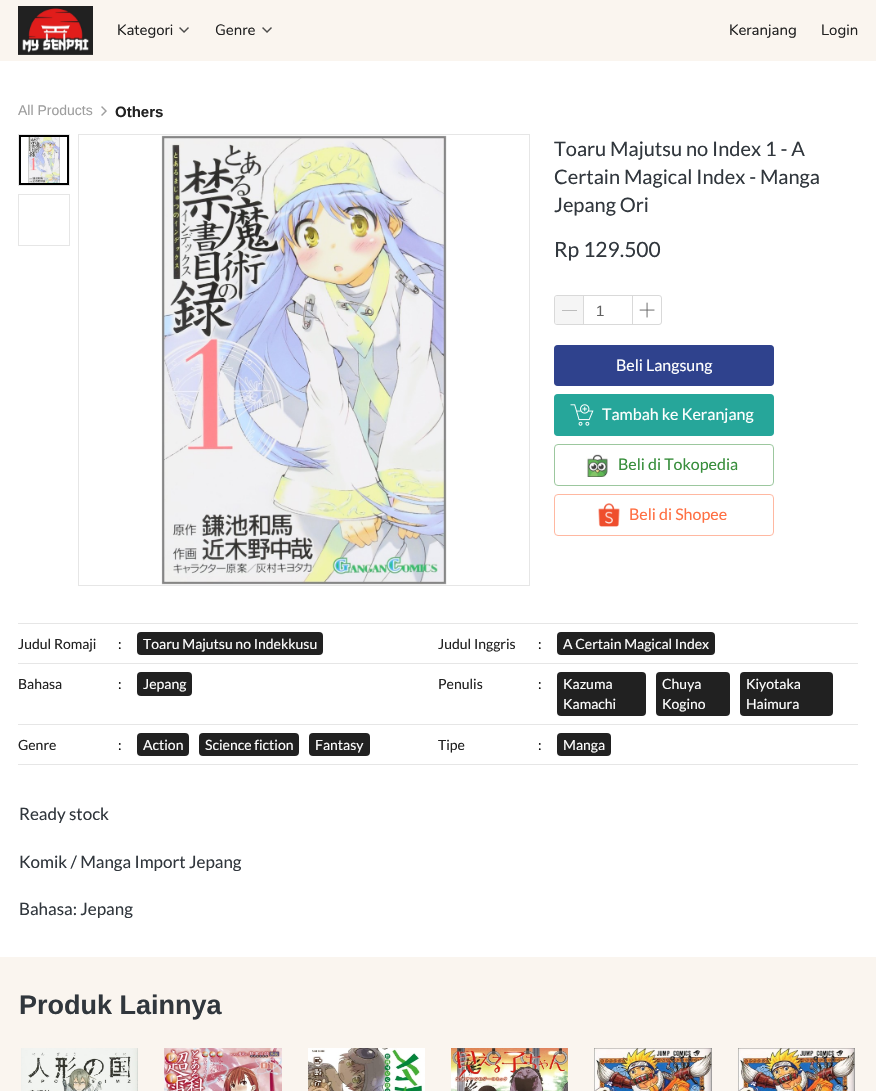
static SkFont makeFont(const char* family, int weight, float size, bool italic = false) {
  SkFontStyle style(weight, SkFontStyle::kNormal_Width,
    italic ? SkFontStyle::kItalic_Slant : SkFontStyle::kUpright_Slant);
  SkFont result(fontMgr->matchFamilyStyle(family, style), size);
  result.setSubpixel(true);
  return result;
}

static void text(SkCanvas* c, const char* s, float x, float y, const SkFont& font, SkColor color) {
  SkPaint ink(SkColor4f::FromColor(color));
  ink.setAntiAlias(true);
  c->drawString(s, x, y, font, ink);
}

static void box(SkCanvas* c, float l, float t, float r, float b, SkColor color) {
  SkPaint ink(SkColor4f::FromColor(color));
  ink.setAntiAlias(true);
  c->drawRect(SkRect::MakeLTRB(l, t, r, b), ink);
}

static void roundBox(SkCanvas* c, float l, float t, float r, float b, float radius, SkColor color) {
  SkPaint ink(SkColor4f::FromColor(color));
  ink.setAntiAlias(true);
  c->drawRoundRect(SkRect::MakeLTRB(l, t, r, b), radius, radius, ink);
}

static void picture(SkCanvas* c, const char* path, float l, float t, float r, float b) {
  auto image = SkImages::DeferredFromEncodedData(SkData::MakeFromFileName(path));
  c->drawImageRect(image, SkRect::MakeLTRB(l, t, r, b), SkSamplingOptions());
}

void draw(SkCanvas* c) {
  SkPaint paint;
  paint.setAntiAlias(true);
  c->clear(0xffffffff);
  box(c, 0, 0, 876, 61, 0xfffaf5ef);
  picture(c, "img_01.png", 18, 6, 93, 55);
  SkFont face1 = makeFont("Nunito", 400, 15);
  text(c, "Kategori", 117, 35, face1, 0xff212121);
  picture(c, "img_02.png", 179, 27, 189, 33);
  text(c, "Genre", 215, 35, face1, 0xff212121);
  picture(c, "img_02.png", 262, 27, 272, 33);
  text(c, "Keranjang", 729, 35, face1, 0xff212121);
  text(c, "Login", 821, 35, face1, 0xff212121);
  SkFont face2 = makeFont("Liberation Sans", 400, 14);
  text(c, "All Products", 18, 115, face2, 0xff9e9e9e);
  picture(c, "img_03.png", 101, 106, 107, 116);
  SkFont face3 = makeFont("Liberation Sans", 700, 15);
  text(c, "Others", 115, 117, face3, 0xff212121);
  paint.setStyle(SkPaint::kStroke_Style);
  paint.setStrokeWidth(1);
  paint.setColor(0xffe6e6e6);
  c->drawRect(SkRect::MakeLTRB(18.5f, 134.5f, 69.5f, 185.5f), paint);
  picture(c, "img_04.png", 28, 137, 60, 183);
  paint.setStrokeWidth(2);
  paint.setColor(0xff000000);
  c->drawRect(SkRect::MakeLTRB(20, 136, 68, 184), paint);
  paint.setStrokeWidth(1);
  paint.setColor(0xffe6e6e6);
  c->drawRect(SkRect::MakeLTRB(18.5f, 194.5f, 69.5f, 245.5f), paint);
  c->drawRect(SkRect::MakeLTRB(78.5f, 134.5f, 529.5f, 585.5f), paint);
  picture(c, "img_05.png", 161, 135, 447, 585);
  SkFont face4 = makeFont("Lato", 400, 20);
  text(c, "Toaru Majutsu no Index 1 - A", 554, 156, face4, 0xff31373d);
  text(c, "Certain Magical Index - Manga", 554, 184, face4, 0xff31373d);
  text(c, "Jepang Ori", 554, 212, face4, 0xff31373d);
  SkFont face5 = makeFont("Lato", 400, 21);
  text(c, "Rp 129.500", 554, 257, face5, 0xff31373d);
  paint.setColor(0xffd9d9d9);
  c->drawRoundRect(SkRect::MakeLTRB(554.5f, 295.5f, 661.5f, 324.5f), 2.5f, 2.5f, paint);
  paint.setStyle(SkPaint::kFill_Style);
  paint.setColor(0xfff5f5f5);
  c->drawPath(SkPathBuilder().moveTo(557, 296).lineTo(583, 296).lineTo(583, 324).lineTo(557, 324).cubicTo(556, 324, 555, 323, 555, 322).lineTo(555, 298).cubicTo(555, 297, 556, 296, 557, 296).close().detach(), paint);
  box(c, 562, 310, 577, 311, 0xffbdbdbd);
  box(c, 632, 296, 633, 324, 0xffd9d9d9);
  box(c, 583, 296, 584, 324, 0xffd9d9d9);
  SkFont face6 = makeFont("Liberation Sans", 400, 15);
  text(c, "1", 596, 316, face6, 0xff616161);
  picture(c, "img_06.png", 639, 302, 655, 318);
  roundBox(c, 554, 345, 774, 386, 4, 0xff2f428d);
  paint.setStyle(SkPaint::kStroke_Style);
  paint.setColor(0x802f428d);
  c->drawRoundRect(SkRect::MakeLTRB(554.5f, 345.5f, 773.5f, 385.5f), 3.5f, 3.5f, paint);
  SkFont face7 = makeFont("Lato", 400, 16);
  text(c, "Beli Langsung", 616, 371, face7, 0xffffffff);
  roundBox(c, 554, 394, 774, 436, 4, 0xff26a69a);
  paint.setColor(0x8026a69a);
  c->drawRoundRect(SkRect::MakeLTRB(554.5f, 394.5f, 773.5f, 435.5f), 3.5f, 3.5f, paint);
  picture(c, "img_07.png", 570, 404, 594, 426);
  text(c, "Tambah ke Keranjang", 602, 420, face7, 0xffffffff);
  paint.setColor(0xff9cc79e);
  c->drawRoundRect(SkRect::MakeLTRB(554.5f, 444.5f, 773.5f, 485.5f), 3.5f, 3.5f, paint);
  picture(c, "img_08.png", 586, 454, 608, 477);
  text(c, "Beli di Tokopedia", 618, 470, face7, 0xff388e3c);
  paint.setColor(0xffffb8a1);
  c->drawRoundRect(SkRect::MakeLTRB(554.5f, 494.5f, 773.5f, 535.5f), 3.5f, 3.5f, paint);
  picture(c, "img_09.png", 598, 503, 620, 527);
  text(c, "Beli di Shopee", 629, 520, face7, 0xffff7043);
  box(c, 18, 764, 858, 765, 0xffe6e6e6);
  box(c, 18, 623, 858, 624, 0xffe6e6e6);
  SkFont face8 = makeFont("Lato", 400, 14);
  text(c, "Judul Romaji", 18, 649, face8, 0xff212121);
  text(c, ":", 118, 649, face8, 0xff000000);
  roundBox(c, 137, 632, 323, 655, 4, 0xff212121);
  text(c, "Toaru Majutsu no Indekkusu", 143, 649, face8, 0xffffffff);
  text(c, "Judul Inggris", 438, 649, face8, 0xff212121);
  text(c, ":", 538, 649, face8, 0xff000000);
  roundBox(c, 557, 632, 715, 655, 4, 0xff212121);
  text(c, "A Certain Magical Index", 563, 649, face8, 0xffffffff);
  box(c, 18, 663, 858, 664, 0xffe6e6e6);
  text(c, "Bahasa", 18, 689, face8, 0xff212121);
  text(c, ":", 118, 689, face8, 0xff000000);
  roundBox(c, 137, 672, 192, 696, 4, 0xff212121);
  text(c, "Jepang", 143, 689, face8, 0xffffffff);
  text(c, "Penulis", 438, 689, face8, 0xff212121);
  text(c, ":", 538, 689, face8, 0xff000000);
  roundBox(c, 557, 672, 646, 716, 4, 0xff212121);
  text(c, "Kazuma", 563, 689, face8, 0xffffffff);
  text(c, "Kamachi", 563, 709, face8, 0xffffffff);
  roundBox(c, 656, 672, 730, 716, 4, 0xff212121);
  text(c, "Chuya", 662, 689, face8, 0xffffffff);
  text(c, "Kogino", 662, 709, face8, 0xffffffff);
  roundBox(c, 740, 672, 833, 716, 4, 0xff212121);
  text(c, "Kiyotaka", 746, 689, face8, 0xffffffff);
  text(c, "Haimura", 746, 709, face8, 0xffffffff);
  box(c, 18, 724, 858, 725, 0xffe6e6e6);
  text(c, "Genre", 18, 750, face8, 0xff212121);
  text(c, ":", 118, 750, face8, 0xff000000);
  roundBox(c, 137, 733, 189, 756, 4, 0xff212121);
  text(c, "Action", 143, 750, face8, 0xffffffff);
  roundBox(c, 199, 733, 299, 756, 4, 0xff212121);
  text(c, "Science fiction", 205, 750, face8, 0xffffffff);
  roundBox(c, 309, 733, 370, 756, 4, 0xff212121);
  text(c, "Fantasy", 315, 750, face8, 0xffffffff);
  text(c, "Tipe", 438, 750, face8, 0xff212121);
  text(c, ":", 538, 750, face8, 0xff000000);
  roundBox(c, 557, 733, 611, 756, 4, 0xff212121);
  text(c, "Manga", 563, 750, face8, 0xffffffff);
  SkFont face9 = makeFont("Lato", 400, 17);
  text(c, "Ready stock", 19, 820, face9, 0xff31373d);
  text(c, "Komik / Manga Import Jepang", 19, 868, face9, 0xff31373d);
  text(c, "Bahasa: Jepang", 19, 915, face9, 0xff31373d);
  box(c, 0, 957, 876, 1091, 0xfffaf5ef);
  SkFont face10 = makeFont("Liberation Sans", 700, 27);
  text(c, "Produk Lainnya", 19, 1014, face10, 0xff31373d);
  picture(c, "img_10.png", 21, 1048, 138, 1091);
  picture(c, "img_11.png", 164, 1048, 282, 1091);
  picture(c, "img_12.png", 308, 1048, 425, 1091);
  picture(c, "img_13.png", 451, 1048, 568, 1091);
  picture(c, "img_14.png", 594, 1048, 712, 1091);
  picture(c, "img_15.png", 738, 1048, 855, 1091);
}
